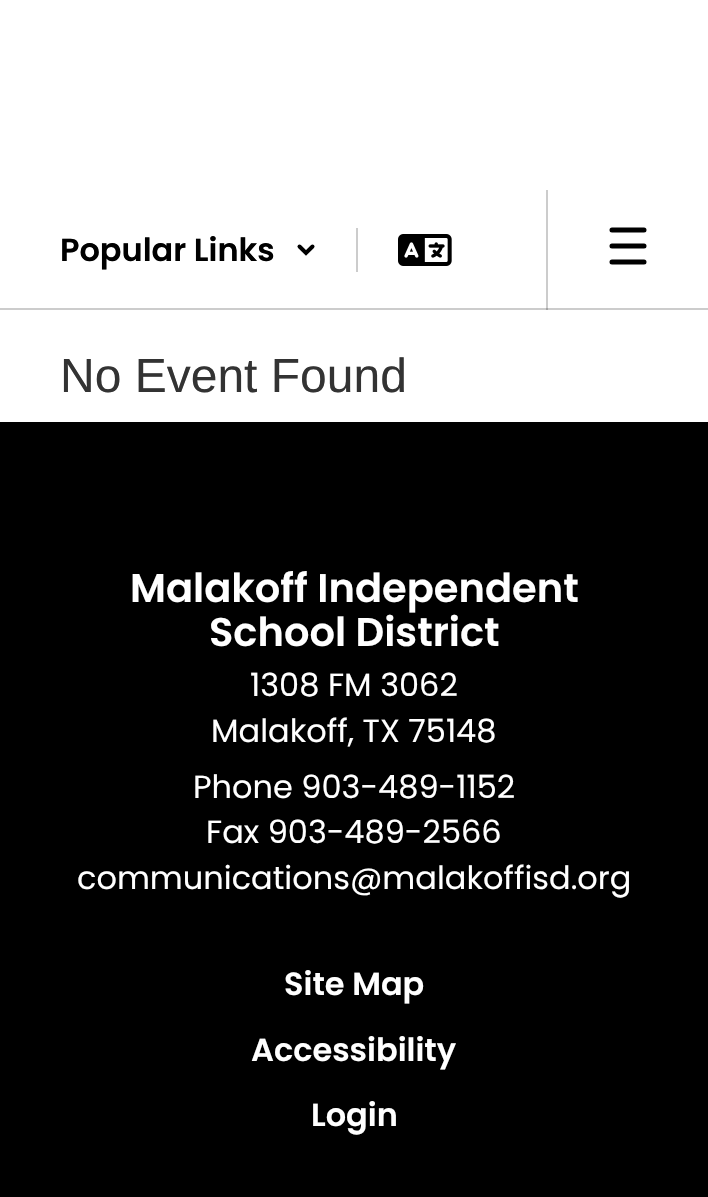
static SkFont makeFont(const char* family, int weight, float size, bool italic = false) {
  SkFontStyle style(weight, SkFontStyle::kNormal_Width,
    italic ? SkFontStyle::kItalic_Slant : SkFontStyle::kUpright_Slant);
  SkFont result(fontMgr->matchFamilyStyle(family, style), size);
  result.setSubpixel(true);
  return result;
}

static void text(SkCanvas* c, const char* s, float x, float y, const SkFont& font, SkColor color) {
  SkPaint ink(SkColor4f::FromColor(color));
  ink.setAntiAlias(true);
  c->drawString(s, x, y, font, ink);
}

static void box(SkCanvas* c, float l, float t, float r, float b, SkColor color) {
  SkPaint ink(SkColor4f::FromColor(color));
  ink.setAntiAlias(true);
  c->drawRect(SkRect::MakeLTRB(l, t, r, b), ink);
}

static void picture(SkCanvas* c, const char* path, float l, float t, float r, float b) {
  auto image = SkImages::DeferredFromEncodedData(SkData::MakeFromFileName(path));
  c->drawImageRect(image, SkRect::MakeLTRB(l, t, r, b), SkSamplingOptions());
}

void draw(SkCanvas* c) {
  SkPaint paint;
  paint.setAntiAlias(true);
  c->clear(0xffffffff);
  box(c, 546, 190, 548, 310, 0xffcccccc);
  SkFont face1 = makeFont("Poppins", 600, 32);
  text(c, "Popular Links", 60, 261, face1, 0xff000000);
  paint.setStyle(SkPaint::kStroke_Style);
  paint.setStrokeWidth(4);
  paint.setStrokeCap(SkPaint::kRound_Cap);
  paint.setColor(0xff000000);
  c->drawPath(SkPathBuilder().moveTo(299.5f, 246.5f).lineTo(306, 253).lineTo(312.5f, 246.5f).detach(), paint);
  box(c, 356, 228, 358, 272, 0xffcccccc);
  picture(c, "img_01.png", 398, 234, 452, 266);
  paint.setStrokeWidth(5);
  c->drawPath(SkPathBuilder().moveTo(612, 230).lineTo(644, 230).moveTo(612, 246).lineTo(644, 246).moveTo(612, 262).lineTo(644, 262).detach(), paint);
  box(c, 0, 308, 708, 310, 0xffcccccc);
  box(c, 546, 308, 548, 310, 0xffa3a3a3);
  SkFont face2 = makeFont("Liberation Sans", 400, 48);
  text(c, "No Event Found", 60, 392, face2, 0xff333333);
  box(c, 0, 422, 708, 1197, 0xff000000);
  SkFont face3 = makeFont("Poppins", 600, 40);
  text(c, "Malakoff Independent", 130, 602, face3, 0xffffffff);
  text(c, "School District", 209, 646, face3, 0xffffffff);
  SkFont face4 = makeFont("Poppins", 400, 32);
  text(c, "1308 FM 3062", 250, 696, face4, 0xffffffff);
  text(c, "Malakoff, TX 75148", 211, 742, face4, 0xffffffff);
  text(c, "Phone 903-489-1152", 193, 798, face4, 0xffffffff);
  text(c, "Fax 903-489-2566", 206, 843, face4, 0xffffffff);
  text(c, "communications@malakoffisd.org", 77, 889, face4, 0xffffffff);
  text(c, "Site Map", 284, 995, face1, 0xffffffff);
  text(c, "Accessibility", 251, 1061, face1, 0xffffffff);
  text(c, "Login", 311, 1126, face1, 0xffffffff);
}
